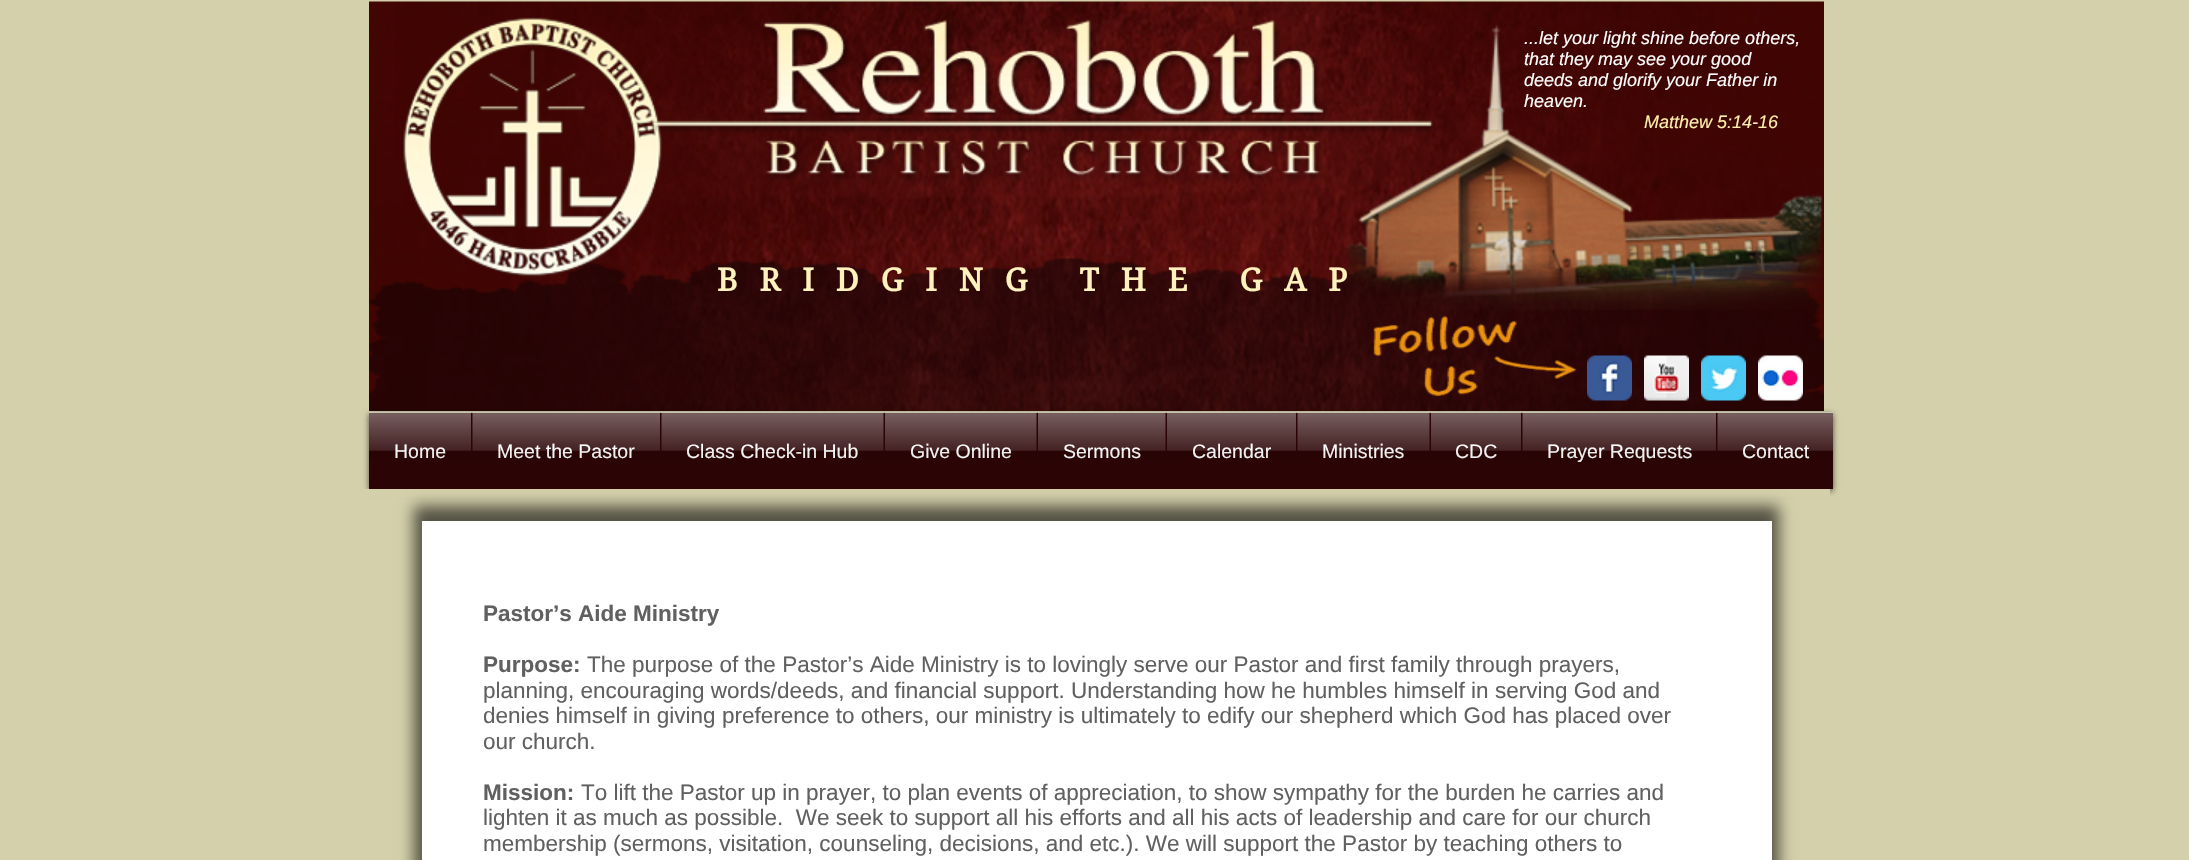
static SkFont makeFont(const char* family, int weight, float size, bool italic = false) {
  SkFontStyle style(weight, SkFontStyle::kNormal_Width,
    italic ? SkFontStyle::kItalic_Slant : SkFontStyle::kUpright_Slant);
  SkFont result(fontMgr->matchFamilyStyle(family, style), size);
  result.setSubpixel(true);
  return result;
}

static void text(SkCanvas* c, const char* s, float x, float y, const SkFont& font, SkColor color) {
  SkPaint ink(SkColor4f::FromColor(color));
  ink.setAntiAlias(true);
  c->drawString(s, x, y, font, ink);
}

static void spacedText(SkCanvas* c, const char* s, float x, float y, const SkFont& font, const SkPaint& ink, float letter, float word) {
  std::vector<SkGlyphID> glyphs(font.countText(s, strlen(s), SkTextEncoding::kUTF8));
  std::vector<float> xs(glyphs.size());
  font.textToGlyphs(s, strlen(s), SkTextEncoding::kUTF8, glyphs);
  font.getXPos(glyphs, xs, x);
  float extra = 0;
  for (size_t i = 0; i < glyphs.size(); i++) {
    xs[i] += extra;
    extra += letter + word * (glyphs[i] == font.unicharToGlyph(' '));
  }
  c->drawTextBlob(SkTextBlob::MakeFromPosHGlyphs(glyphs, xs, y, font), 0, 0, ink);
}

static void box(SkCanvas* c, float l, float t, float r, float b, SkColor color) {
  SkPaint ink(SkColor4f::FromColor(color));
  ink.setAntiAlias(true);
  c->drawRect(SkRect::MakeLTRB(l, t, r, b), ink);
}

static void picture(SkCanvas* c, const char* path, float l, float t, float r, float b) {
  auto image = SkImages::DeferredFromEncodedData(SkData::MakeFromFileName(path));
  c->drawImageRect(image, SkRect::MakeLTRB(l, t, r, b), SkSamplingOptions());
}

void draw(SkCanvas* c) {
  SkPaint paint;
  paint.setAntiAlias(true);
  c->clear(0xffd4d0ab);
  picture(c, "img_01.png", 369, 1, 1824, 411);
  picture(c, "img_02.png", 402, 17, 662, 277);
  picture(c, "img_03.png", 650, 19, 1436, 182);
  SkFont face1 = makeFont("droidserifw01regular", 700, 31.5f);
  paint.setColor(0xfffff2bd);
  spacedText(c, "BRIDGING THE GAP", 717, 291, face1, paint, 22, 0);
  picture(c, "img_04.png", 1346, 24, 1823, 310);
  SkFont face2 = makeFont("Liberation Sans", 400, 18, true);
  text(c, "...let your light shine before others,", 1524, 44, face2, 0xffffffff);
  text(c, "that they may see your good", 1524, 65, face2, 0xffffffff);
  text(c, "deeds and glorify your Father in", 1524, 86, face2, 0xffffffff);
  text(c, "heaven.", 1524, 107, face2, 0xffffffff);
  text(c, "Matthew 5:14-16", 1644, 128, face2, 0xffffefaa);
  picture(c, "img_05.png", 1373, 315, 1577, 397);
  picture(c, "img_06.png", 1587, 355, 1632, 401);
  picture(c, "img_07.png", 1644, 355, 1689, 401);
  picture(c, "img_08.png", 1701, 355, 1746, 401);
  picture(c, "img_09.png", 1758, 355, 1803, 401);
  paint.setColor(0x99000000);
  paint.setMaskFilter(SkMaskFilter::MakeBlur(kNormal_SkBlurStyle, 3));
  c->drawRect(SkRect::MakeLTRB(369, 414, 1833, 491), paint);
  paint.setMaskFilter(nullptr);
  picture(c, "img_10.png", 369, 412, 1833, 413);
  box(c, 369, 413, 1833, 489, 0xff2b0405);
  SkFont face3 = makeFont("Liberation Sans", 400, 19.5f);
  text(c, "Home", 394, 458, face3, 0xffffffff);
  picture(c, "img_11.png", 369, 412, 471, 459);
  text(c, "Meet the Pastor", 497, 458, face3, 0xffffffff);
  picture(c, "img_12.png", 472, 412, 660, 459);
  text(c, "Class Check-in Hub", 686, 458, face3, 0xffffffff);
  picture(c, "img_13.png", 661, 412, 884, 459);
  text(c, "Give Online", 910, 458, face3, 0xffffffff);
  picture(c, "img_14.png", 885, 412, 1037, 459);
  text(c, "Sermons", 1063, 458, face3, 0xffffffff);
  picture(c, "img_15.png", 1038, 412, 1166, 459);
  text(c, "Calendar", 1192, 458, face3, 0xffffffff);
  picture(c, "img_16.png", 1167, 412, 1296, 459);
  text(c, "Ministries", 1322, 458, face3, 0xffffffff);
  picture(c, "img_17.png", 1297, 412, 1430, 459);
  text(c, "CDC", 1455, 458, face3, 0xffffffff);
  picture(c, "img_18.png", 1431, 412, 1521, 459);
  text(c, "Prayer Requests", 1547, 458, face3, 0xffffffff);
  picture(c, "img_19.png", 1522, 412, 1716, 462);
  text(c, "Contact", 1742, 458, face3, 0xffffffff);
  picture(c, "img_20.png", 1717, 412, 1833, 459);
  box(c, 363, 489, 1830, 497, 0xffd4d0ab);
  paint.setMaskFilter(SkMaskFilter::MakeBlur(kNormal_SkBlurStyle, 7));
  c->drawRect(SkRect::MakeLTRB(414, 506, 1779, 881), paint);
  paint.setMaskFilter(nullptr);
  box(c, 422, 521, 1772, 860, 0xffffffff);
  SkFont face4 = makeFont("Liberation Sans", 700, 22.5f);
  text(c, "Pastor’s Aide Ministry", 483, 621, face4, 0xff606060);
  text(c, "Purpose:", 483, 672, face4, 0xff606060);
  SkFont face5 = makeFont("Liberation Sans", 400, 22.5f);
  text(c, "The purpose of the Pastor’s Aide Ministry is to lovingly serve our Pastor and first family through prayers,", 587, 672, face5, 0xff606060);
  text(c, "planning, encouraging words/deeds, and financial support. Understanding how he humbles himself in serving God and", 483, 698, face5, 0xff606060);
  text(c, "denies himself in giving preference to others, our ministry is ultimately to edify our shepherd which God has placed over", 483, 723, face5, 0xff606060);
  text(c, "our church.", 483, 749, face5, 0xff606060);
  text(c, "Mission:", 483, 800, face4, 0xff606060);
  text(c, "To lift the Pastor up in prayer, to plan events of appreciation, to show sympathy for the burden he carries and", 581, 800, face5, 0xff606060);
  text(c, "lighten it as much as possible.  We seek to support all his efforts and all his acts of leadership and care for our church", 483, 825, face5, 0xff606060);
  text(c, "membership (sermons, visitation, counseling, decisions, and etc.). We will support the Pastor by teaching others to", 483, 851, face5, 0xff606060);
}
